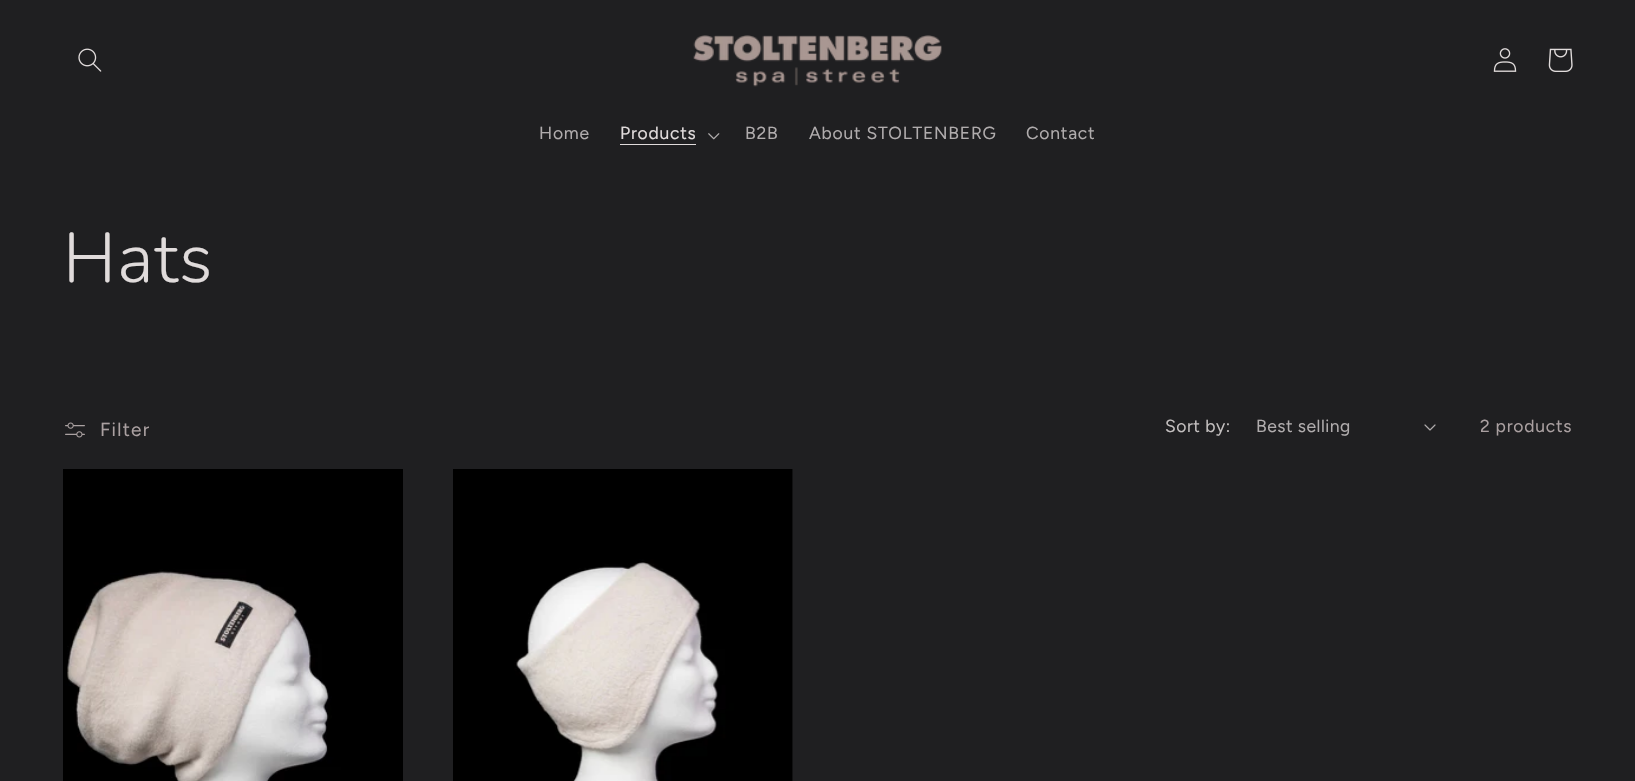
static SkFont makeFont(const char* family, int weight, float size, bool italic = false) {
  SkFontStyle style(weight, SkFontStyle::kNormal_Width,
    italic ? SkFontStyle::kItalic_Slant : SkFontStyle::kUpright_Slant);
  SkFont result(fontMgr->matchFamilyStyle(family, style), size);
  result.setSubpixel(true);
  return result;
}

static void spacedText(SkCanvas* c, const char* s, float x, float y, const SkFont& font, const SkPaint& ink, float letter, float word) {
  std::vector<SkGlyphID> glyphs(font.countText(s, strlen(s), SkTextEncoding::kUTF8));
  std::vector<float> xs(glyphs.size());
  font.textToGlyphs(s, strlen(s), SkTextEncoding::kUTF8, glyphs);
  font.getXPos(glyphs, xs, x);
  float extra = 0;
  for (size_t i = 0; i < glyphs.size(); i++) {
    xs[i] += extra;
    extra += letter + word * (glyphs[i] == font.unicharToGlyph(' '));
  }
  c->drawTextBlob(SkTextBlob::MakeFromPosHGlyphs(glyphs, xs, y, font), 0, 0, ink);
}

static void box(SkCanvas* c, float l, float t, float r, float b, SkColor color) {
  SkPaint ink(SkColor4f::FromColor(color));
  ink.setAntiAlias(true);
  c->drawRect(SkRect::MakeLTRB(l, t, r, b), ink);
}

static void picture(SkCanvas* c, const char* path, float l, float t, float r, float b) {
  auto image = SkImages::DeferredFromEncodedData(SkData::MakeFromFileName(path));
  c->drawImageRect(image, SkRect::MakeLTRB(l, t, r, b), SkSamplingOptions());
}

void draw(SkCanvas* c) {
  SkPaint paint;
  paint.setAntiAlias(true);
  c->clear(0xff1f1f21);
  picture(c, "img_01.png", 78, 48, 102, 72);
  picture(c, "img_02.png", 693, 35, 942, 87);
  picture(c, "img_03.png", 1493, 48, 1517, 72);
  picture(c, "img_04.png", 1548, 48, 1573, 72);
  SkFont face1 = makeFont("Figtree", 400, 17.5f);
  paint.setColor(0xffb0acad);
  spacedText(c, "Home", 539, 139, face1, paint, 0.75f, 0);
  paint.setColor(0xffe0dbdb);
  spacedText(c, "Products", 620, 139, face1, paint, 0.75f, 0);
  box(c, 620, 144, 696, 145, 0xffe0dbdb);
  picture(c, "img_05.png", 708, 133, 720, 140);
  paint.setColor(0xffb0acad);
  spacedText(c, "B2B", 745, 139, face1, paint, 0.75f, 0);
  spacedText(c, "About STOLTENBERG", 809, 139, face1, paint, 0.75f, 0);
  spacedText(c, "Contact", 1026, 139, face1, paint, 0.75f, 0);
  SkFont face2 = makeFont("Nunito", 300, 70);
  paint.setColor(0xffe0dbdb);
  spacedText(c, "Hats", 63, 282, face2, paint, 1, 0);
  picture(c, "img_06.png", 65, 422, 85, 438);
  SkFont face3 = makeFont("Figtree", 400, 19);
  paint.setColor(0xffaaa0a1);
  spacedText(c, "Filter", 100, 436, face3, paint, 1.25f, 0);
  paint.setColor(0xffc3bfbf);
  spacedText(c, "Sort by:", 1165, 432, face1, paint, 0.5f, 0);
  paint.setColor(0xffb0acad);
  spacedText(c, "Best selling", 1256, 432, face1, paint, 0.5f, 0);
  picture(c, "img_07.png", 1424, 424, 1436, 431);
  paint.setColor(0xffaaa0a1);
  spacedText(c, "2 products", 1480, 432, face1, paint, 0.75f, 0);
  picture(c, "img_08.png", 63, 469, 403, 781);
  picture(c, "img_09.png", 453, 469, 793, 781);
}
